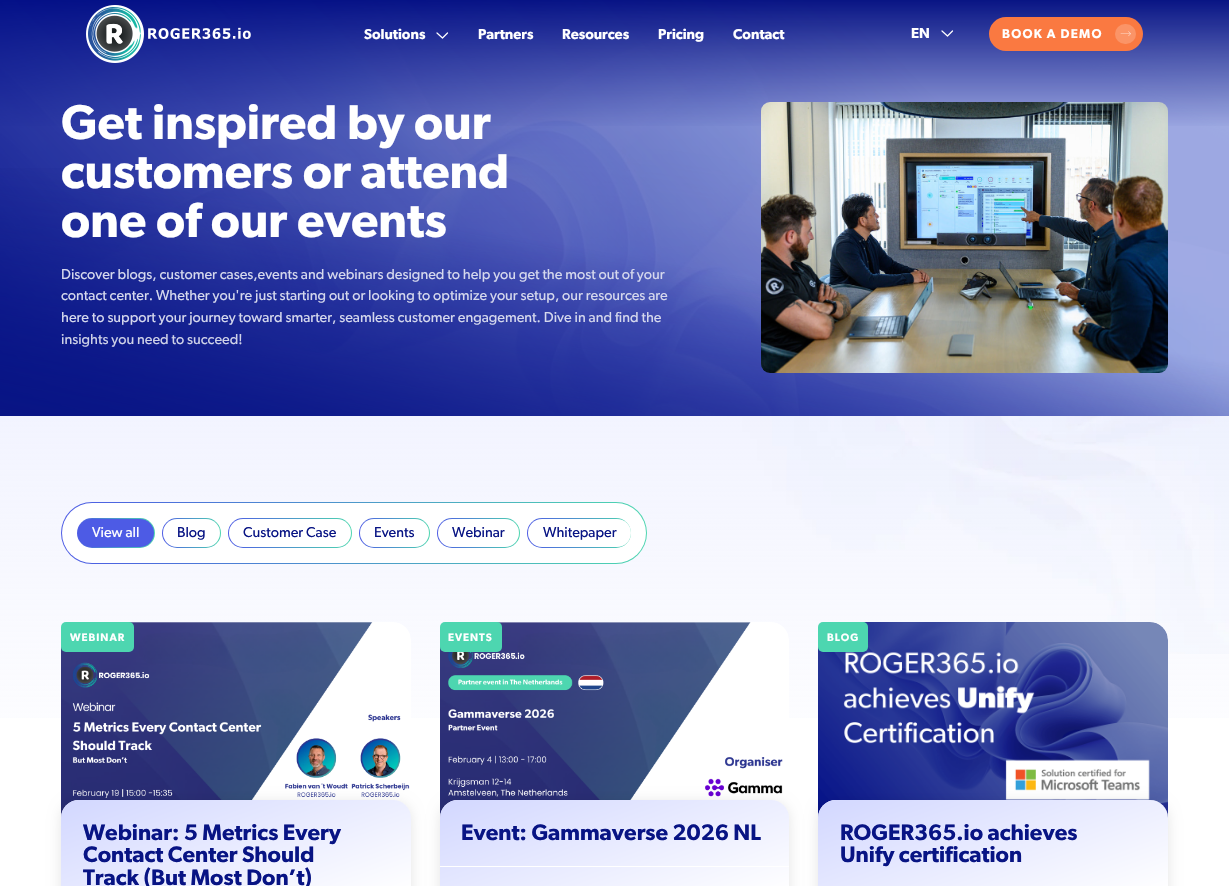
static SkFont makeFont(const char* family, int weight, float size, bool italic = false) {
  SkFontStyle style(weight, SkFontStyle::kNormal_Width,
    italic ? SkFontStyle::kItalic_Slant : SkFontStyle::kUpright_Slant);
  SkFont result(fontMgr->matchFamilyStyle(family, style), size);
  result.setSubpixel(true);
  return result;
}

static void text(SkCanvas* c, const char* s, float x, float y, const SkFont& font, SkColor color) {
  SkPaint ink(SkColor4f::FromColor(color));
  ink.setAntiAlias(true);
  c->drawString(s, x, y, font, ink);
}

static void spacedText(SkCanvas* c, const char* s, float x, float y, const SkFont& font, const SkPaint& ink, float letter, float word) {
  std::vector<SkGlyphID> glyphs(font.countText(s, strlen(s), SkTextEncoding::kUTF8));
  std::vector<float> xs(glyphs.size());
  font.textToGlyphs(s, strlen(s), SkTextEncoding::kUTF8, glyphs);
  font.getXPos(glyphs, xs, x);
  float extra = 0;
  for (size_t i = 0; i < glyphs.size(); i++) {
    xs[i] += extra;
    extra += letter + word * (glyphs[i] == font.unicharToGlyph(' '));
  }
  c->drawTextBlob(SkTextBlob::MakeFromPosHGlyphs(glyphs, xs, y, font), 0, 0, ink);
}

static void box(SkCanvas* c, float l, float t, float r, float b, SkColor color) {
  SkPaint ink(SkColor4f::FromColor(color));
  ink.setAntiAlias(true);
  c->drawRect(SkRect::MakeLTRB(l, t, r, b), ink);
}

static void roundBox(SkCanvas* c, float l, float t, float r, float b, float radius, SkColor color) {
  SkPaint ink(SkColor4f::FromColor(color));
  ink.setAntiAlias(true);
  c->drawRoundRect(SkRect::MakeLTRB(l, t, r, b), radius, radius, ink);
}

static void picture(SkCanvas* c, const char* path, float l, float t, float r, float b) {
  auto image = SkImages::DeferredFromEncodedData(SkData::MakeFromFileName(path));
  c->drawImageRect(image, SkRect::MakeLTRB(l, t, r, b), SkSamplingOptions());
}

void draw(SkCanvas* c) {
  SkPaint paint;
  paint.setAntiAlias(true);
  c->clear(0xffffffff);
  picture(c, "img_03.png", 0, 1, 1229, 416);
  picture(c, "img_04.png", 0, 1, 1229, 416);
  box(c, 0, 1, 1229, 416, 0x4d081484);
  box(c, 0, 1, 1229, 416, 0x4dd2d7ff);
  {
    const SkColor colors[] = {0xff081484, 0x00081484};
    const float stops[] = {0, 0.31f};
    const SkPoint ends[] = {{615, 0}, {615, 416}};
    paint.setShader(SkGradientShader::MakeLinear(ends, colors, stops, 2, SkTileMode::kClamp));
    paint.setAlpha(255);
  }
  c->drawRect(SkRect::MakeLTRB(0, 0, 1229, 126), paint);
  c->save();
  c->clipRect(SkRect::MakeLTRB(0, 0, 1229, 416));
  {
    const SkColor colors[] = {0xff000d89, 0x00000d89, 0x00081484};
    const float stops[] = {0.04f, 0.46f, 1};
    const SkPoint ends[] = {{206, 810}, {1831, -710}};
    paint.setShader(SkGradientShader::MakeLinear(ends, colors, stops, 3, SkTileMode::kClamp));
    paint.setAlpha(255);
  }
  c->drawPath(SkPathBuilder().moveTo(1229, -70).lineTo(1229, 485).lineTo(17, 485).cubicTo(8, 485, 0, 478, 0, 468).lineTo(0, -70).close().detach(), paint);
  c->restore();
  picture(c, "img_01.png", 86, 5, 251, 63);
  SkFont face1 = makeFont("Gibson", 600, 14.4f);
  text(c, "Solutions", 364, 39, face1, 0xffffffff);
  paint.setStyle(SkPaint::kStroke_Style);
  paint.setStrokeWidth(1.2f);
  paint.setStrokeCap(SkPaint::kRound_Cap);
  paint.setStrokeJoin(SkPaint::kRound_Join);
  paint.setShader(nullptr);
  paint.setColor(0xffffffff);
  c->drawPath(SkPathBuilder().moveTo(437, 33).lineTo(442.5f, 38).lineTo(447.5f, 33).detach(), paint);
  text(c, "Partners", 478, 39, face1, 0xffffffff);
  text(c, "Resources", 562, 39, face1, 0xffffffff);
  text(c, "Pricing", 658, 39, face1, 0xffffffff);
  text(c, "Contact", 733, 39, face1, 0xffffffff);
  text(c, "EN", 911, 38, face1, 0xffffffff);
  c->drawPath(SkPathBuilder().moveTo(942, 31).lineTo(947.5f, 36).lineTo(952.5f, 31).detach(), paint);
  roundBox(c, 989, 17, 1143, 51, 17, 0xfffa7941);
  SkFont face2 = makeFont("Gibson", 600, 12.75f);
  paint.setStyle(SkPaint::kFill_Style);
  spacedText(c, "BOOK A DEMO", 1002, 38, face2, paint, 1.25f, 0);
  roundBox(c, 1115, 24, 1136, 44, 10, 0xfffb9467);
  picture(c, "img_02.png", 1120, 31, 1131, 37);
  {
    const SkColor colors[] = {0xff081484, 0x00081484};
    const float stops[] = {0, 0.43f};
    const SkPoint ends[] = {{560, 515}, {669, -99}};
    paint.setShader(SkGradientShader::MakeLinear(ends, colors, stops, 2, SkTileMode::kClamp));
    paint.setAlpha(255);
  }
  c->drawRect(SkRect::MakeLTRB(0, 168, 1229, 416), paint);
  SkFont face3 = makeFont("Gibson", 600, 49);
  text(c, "Get inspired by our", 61, 139, face3, 0xffffffff);
  text(c, "customers or attend", 61, 188, face3, 0xffffffff);
  text(c, "one of our events", 61, 237, face3, 0xffffffff);
  SkFont face4 = makeFont("Gibson", 400, 14.4f);
  text(c, "Discover blogs, customer cases,events and webinars designed to help you get the most out of your", 61, 279, face4, 0xffd5d8ed);
  text(c, "contact center. Whether you're just starting out or looking to optimize your setup, our resources are", 61, 300, face4, 0xffd5d8ed);
  text(c, "here to support your journey toward smarter, seamless customer engagement. Dive in and find the", 61, 322, face4, 0xffd5d8ed);
  text(c, "insights you need to succeed!", 61, 344, face4, 0xffcfd2e8);
  picture(c, "img_05.png", 761, 102, 1168, 373);
  picture(c, "img_06.png", 0, 416, 1229, 718);
  {
    const SkColor colors[] = {0xff4d5be5, 0xff4dd6b0};
    const float stops[] = {0, 1};
    const SkPoint ends[] = {{61, 533}, {647, 533}};
    paint.setShader(SkGradientShader::MakeLinear(ends, colors, stops, 2, SkTileMode::kClamp));
    paint.setAlpha(255);
  }
  c->drawRoundRect(SkRect::MakeLTRB(61, 502, 647, 564), 31, 31, paint);
  roundBox(c, 62, 503, 646, 563, 30, 0xffffffff);
  {
    const SkColor colors[] = {0xff4d5be5, 0xff4dd6b0};
    const float stops[] = {0, 1};
    const SkPoint ends[] = {{77, 533}, {155, 533}};
    paint.setShader(SkGradientShader::MakeLinear(ends, colors, stops, 2, SkTileMode::kClamp));
    paint.setAlpha(255);
  }
  c->drawRoundRect(SkRect::MakeLTRB(77, 518, 155, 548), 15, 15, paint);
  roundBox(c, 78, 519, 154, 547, 14, 0xff4d5be5);
  text(c, "View all", 92, 537, face4, 0xffffffff);
  {
    const SkColor colors[] = {0xff4d5be5, 0xff4dd6b0};
    const float stops[] = {0, 1};
    const SkPoint ends[] = {{162, 533}, {221, 533}};
    paint.setShader(SkGradientShader::MakeLinear(ends, colors, stops, 2, SkTileMode::kClamp));
    paint.setAlpha(255);
  }
  c->drawRoundRect(SkRect::MakeLTRB(162, 518, 221, 548), 15, 15, paint);
  roundBox(c, 163, 519, 220, 547, 14, 0xffffffff);
  text(c, "Blog", 177, 537, face4, 0xff081484);
  {
    const SkColor colors[] = {0xff4d5be5, 0xff4dd6b0};
    const float stops[] = {0, 1};
    const SkPoint ends[] = {{228, 533}, {352, 533}};
    paint.setShader(SkGradientShader::MakeLinear(ends, colors, stops, 2, SkTileMode::kClamp));
    paint.setAlpha(255);
  }
  c->drawRoundRect(SkRect::MakeLTRB(228, 518, 352, 548), 15, 15, paint);
  roundBox(c, 229, 519, 351, 547, 14, 0xffffffff);
  text(c, "Customer Case", 243, 537, face4, 0xff081484);
  {
    const SkColor colors[] = {0xff4d5be5, 0xff4dd6b0};
    const float stops[] = {0, 1};
    const SkPoint ends[] = {{359, 533}, {430, 533}};
    paint.setShader(SkGradientShader::MakeLinear(ends, colors, stops, 2, SkTileMode::kClamp));
    paint.setAlpha(255);
  }
  c->drawRoundRect(SkRect::MakeLTRB(359, 518, 430, 548), 15, 15, paint);
  roundBox(c, 360, 519, 429, 547, 14, 0xffffffff);
  text(c, "Events", 374, 537, face4, 0xff081484);
  {
    const SkColor colors[] = {0xff4d5be5, 0xff4dd6b0};
    const float stops[] = {0, 1};
    const SkPoint ends[] = {{437, 533}, {520, 533}};
    paint.setShader(SkGradientShader::MakeLinear(ends, colors, stops, 2, SkTileMode::kClamp));
    paint.setAlpha(255);
  }
  c->drawRoundRect(SkRect::MakeLTRB(437, 518, 520, 548), 15, 15, paint);
  roundBox(c, 438, 519, 519, 547, 14, 0xffffffff);
  text(c, "Webinar", 452, 537, face4, 0xff081484);
  {
    const SkColor colors[] = {0xff4d5be5, 0xff4dd6b0};
    const float stops[] = {0, 1};
    const SkPoint ends[] = {{527, 533}, {631, 533}};
    paint.setShader(SkGradientShader::MakeLinear(ends, colors, stops, 2, SkTileMode::kClamp));
    paint.setAlpha(255);
  }
  c->drawRoundRect(SkRect::MakeLTRB(527, 518, 631, 548), 15, 15, paint);
  roundBox(c, 528, 519, 631, 547, 14, 0xffffffff);
  text(c, "Whitepaper", 543, 537, face4, 0xff081484);
  picture(c, "img_07.png", 61, 622, 411, 818);
  roundBox(c, 61, 622, 134, 652, 5, 0xff4dd6b0);
  SkFont face5 = makeFont("Gibson", 600, 10.75f);
  paint.setShader(nullptr);
  paint.setColor(0xffffffff);
  spacedText(c, "WEBINAR", 70, 641, face5, paint, 1, 0);
  paint.setColor(0x1a000000);
  paint.setMaskFilter(SkMaskFilter::MakeBlur(kNormal_SkBlurStyle, 6.5f));
  c->drawRoundRect(SkRect::MakeLTRB(61, 802, 411, 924), 18, 18, paint);
  paint.setMaskFilter(nullptr);
  roundBox(c, 61, 800, 411, 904, 18, 0xffffffff);
  {
    const SkColor colors[] = {0xffd2d7ff, 0x00d2d7ff};
    const float stops[] = {0, 0.48f};
    const SkPoint ends[] = {{162, 763}, {310, 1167}};
    paint.setShader(SkGradientShader::MakeLinear(ends, colors, stops, 2, SkTileMode::kClamp));
    paint.setAlpha(255);
  }
  c->drawRoundRect(SkRect::MakeLTRB(61, 800, 411, 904), 18, 18, paint);
  SkFont face6 = makeFont("Gibson", 600, 22.5f);
  text(c, "Webinar: 5 Metrics Every", 83, 840, face6, 0xff081484);
  text(c, "Contact Center Should", 83, 862, face6, 0xff081484);
  text(c, "Track (But Most Don’t)", 83, 885, face6, 0xff081484);
  picture(c, "img_08.png", 440, 622, 789, 818);
  roundBox(c, 440, 622, 502, 652, 5, 0xff4dd6b0);
  paint.setShader(nullptr);
  paint.setColor(0xffffffff);
  spacedText(c, "EVENTS", 448, 641, face5, paint, 1, 0);
  paint.setColor(0x1a000000);
  paint.setMaskFilter(SkMaskFilter::MakeBlur(kNormal_SkBlurStyle, 6.5f));
  c->drawRoundRect(SkRect::MakeLTRB(440, 802, 789, 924), 18, 18, paint);
  paint.setMaskFilter(nullptr);
  roundBox(c, 440, 800, 789, 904, 18, 0xffffffff);
  {
    const SkColor colors[] = {0xffd2d7ff, 0x00d2d7ff};
    const float stops[] = {0, 0.48f};
    const SkPoint ends[] = {{541, 763}, {688, 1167}};
    paint.setShader(SkGradientShader::MakeLinear(ends, colors, stops, 2, SkTileMode::kClamp));
    paint.setAlpha(255);
  }
  c->drawRoundRect(SkRect::MakeLTRB(440, 800, 789, 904), 18, 18, paint);
  box(c, 440, 866, 789, 867, 0xffffffff);
  text(c, "Event: Gammaverse 2026 NL", 461, 840, face6, 0xff081484);
  picture(c, "img_09.png", 818, 622, 1168, 818);
  roundBox(c, 818, 622, 868, 652, 5, 0xff4dd6b0);
  paint.setShader(nullptr);
  paint.setColor(0xffffffff);
  spacedText(c, "BLOG", 827, 641, face5, paint, 1, 0);
  paint.setColor(0x1a000000);
  paint.setMaskFilter(SkMaskFilter::MakeBlur(kNormal_SkBlurStyle, 6.5f));
  c->drawRoundRect(SkRect::MakeLTRB(818, 802, 1168, 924), 18, 18, paint);
  paint.setMaskFilter(nullptr);
  roundBox(c, 818, 800, 1168, 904, 18, 0xffffffff);
  {
    const SkColor colors[] = {0xffd2d7ff, 0x00d2d7ff};
    const float stops[] = {0, 0.48f};
    const SkPoint ends[] = {{919, 763}, {1067, 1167}};
    paint.setShader(SkGradientShader::MakeLinear(ends, colors, stops, 2, SkTileMode::kClamp));
    paint.setAlpha(255);
  }
  c->drawRoundRect(SkRect::MakeLTRB(818, 800, 1168, 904), 18, 18, paint);
  text(c, "ROGER365.io achieves", 840, 840, face6, 0xff081484);
  text(c, "Unify certification", 840, 862, face6, 0xff081484);
}
